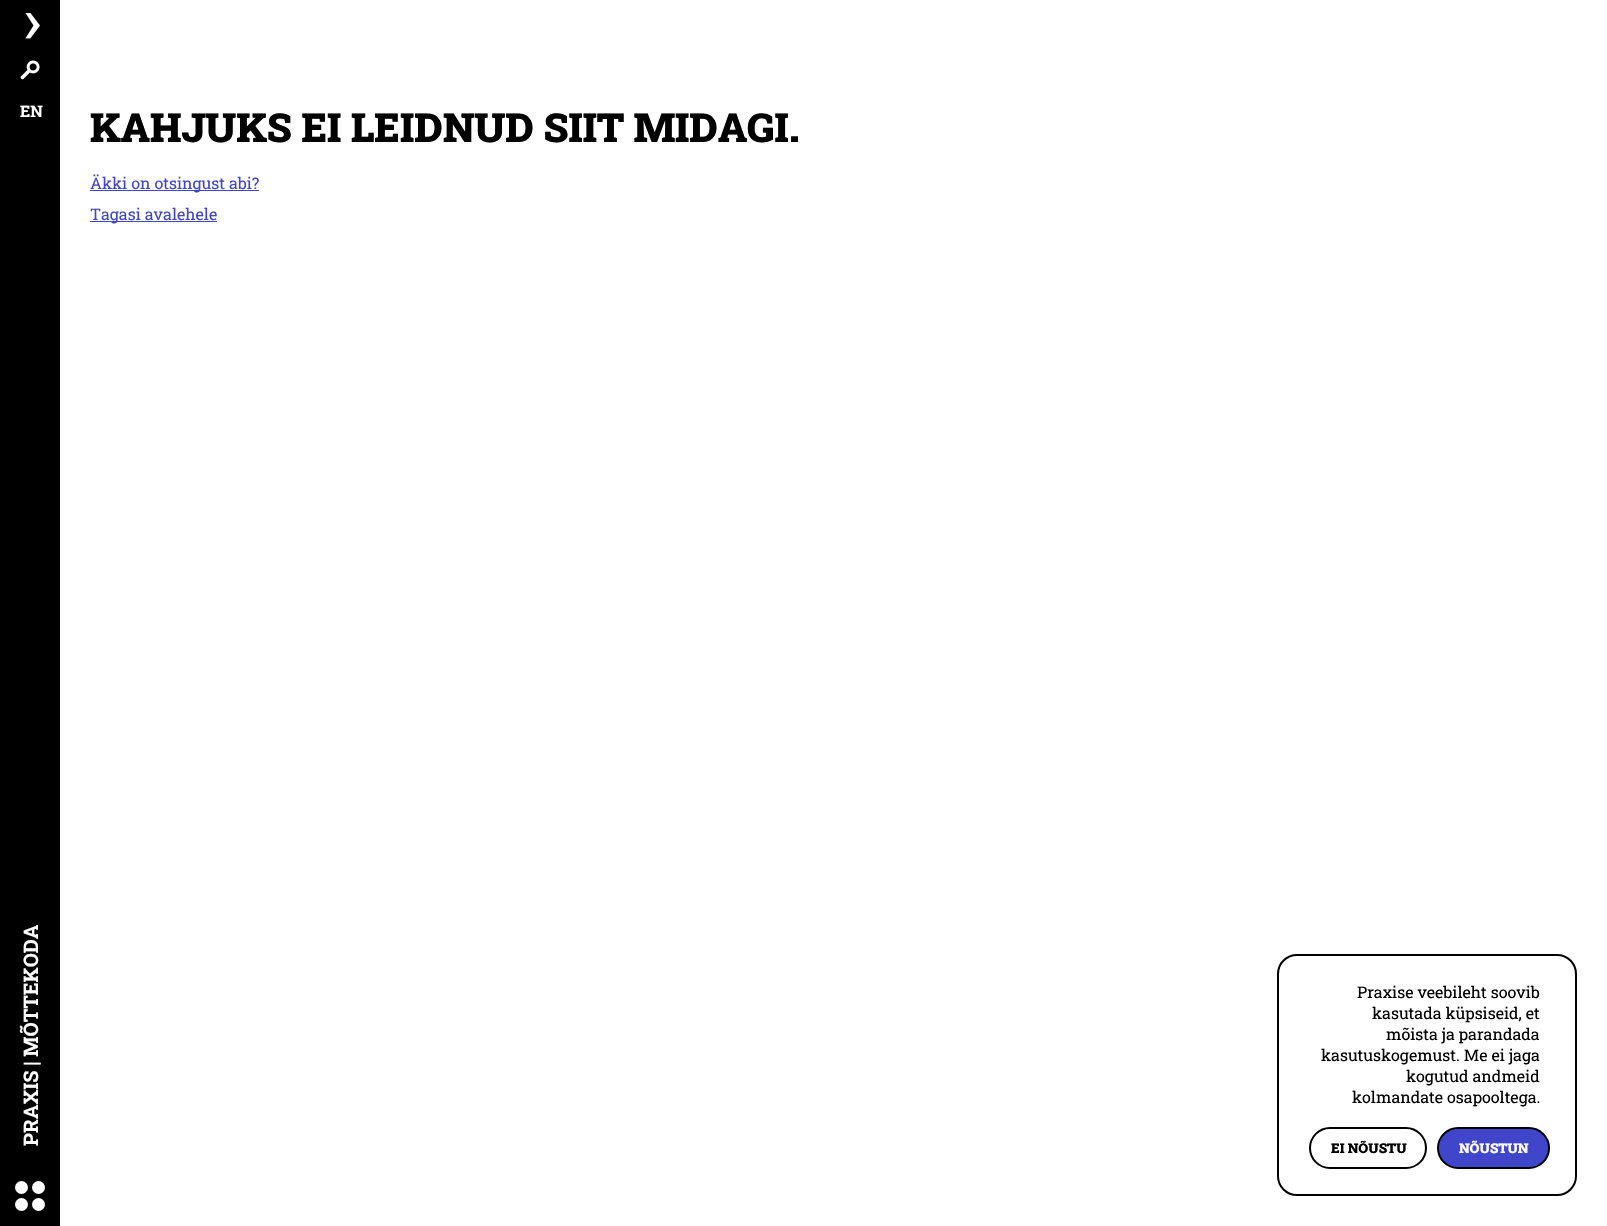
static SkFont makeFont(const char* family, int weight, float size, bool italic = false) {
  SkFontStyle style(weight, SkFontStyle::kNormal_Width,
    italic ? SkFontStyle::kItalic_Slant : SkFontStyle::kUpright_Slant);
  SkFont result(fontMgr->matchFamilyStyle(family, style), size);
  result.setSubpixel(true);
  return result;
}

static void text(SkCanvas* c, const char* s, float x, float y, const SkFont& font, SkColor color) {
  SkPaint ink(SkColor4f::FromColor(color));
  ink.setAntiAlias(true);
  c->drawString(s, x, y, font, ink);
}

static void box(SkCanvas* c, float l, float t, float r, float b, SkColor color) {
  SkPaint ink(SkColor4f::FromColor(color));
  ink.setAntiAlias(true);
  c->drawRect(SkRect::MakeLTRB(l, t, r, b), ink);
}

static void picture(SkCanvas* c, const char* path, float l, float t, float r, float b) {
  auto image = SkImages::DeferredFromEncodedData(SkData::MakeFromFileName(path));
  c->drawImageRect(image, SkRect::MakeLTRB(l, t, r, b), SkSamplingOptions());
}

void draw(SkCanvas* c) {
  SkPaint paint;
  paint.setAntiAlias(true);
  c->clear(0xffffffff);
  box(c, 0, 0, 60, 1226, 0xff000000);
  SkFont face1 = makeFont("Roboto Slab", 400, 65);
  text(c, "›", 23, 43, face1, 0xffffffff);
  SkFont face2 = makeFont("Roboto Slab", 700, 20);
  c->save();
  c->rotate(-90, 38, 1146);
  text(c, "PRAXIS | MÕTTEKODA", 38, 1146, face2, 0xffffffff);
  c->restore();
  paint.setColor(0xffffffff);
  c->drawCircle(21.5f, 1187.5f, 6.5f, paint);
  c->drawCircle(21.5f, 1204.5f, 6.5f, paint);
  c->drawCircle(38.5f, 1187.5f, 6.5f, paint);
  c->drawCircle(38.5f, 1204.5f, 6.5f, paint);
  picture(c, "img_01.png", 20, 60, 40, 80);
  SkFont face3 = makeFont("Roboto Slab", 700, 16);
  text(c, "EN", 20, 117, face3, 0xffffffff);
  SkFont face4 = makeFont("Roboto Slab", 900, 40);
  text(c, "KAHJUKS EI LEIDNUD SIIT MIDAGI.", 90, 142, face4, 0xff000000);
  box(c, 90, 190, 259, 191, 0xff4046ca);
  SkFont face5 = makeFont("Roboto Slab", 400, 16);
  text(c, "Äkki on otsingust abi?", 90, 189, face5, 0xff4046ca);
  box(c, 90, 221, 217, 222, 0xff4046ca);
  text(c, "Tagasi avalehele", 90, 220, face5, 0xff4046ca);
  paint.setStyle(SkPaint::kStroke_Style);
  paint.setStrokeWidth(2);
  paint.setColor(0xff000000);
  c->drawRoundRect(SkRect::MakeLTRB(1278, 955, 1576, 1195), 19, 19, paint);
  text(c, "Praxise veebileht soovib", 1357, 998, face5, 0xff000000);
  text(c, "kasutada küpsiseid, et", 1372, 1019, face5, 0xff000000);
  text(c, "mõista ja parandada", 1386, 1040, face5, 0xff000000);
  text(c, "kasutuskogemust. Me ei jaga", 1321, 1061, face5, 0xff000000);
  text(c, "kogutud andmeid", 1406, 1082, face5, 0xff000000);
  text(c, "kolmandate osapooltega.", 1352, 1103, face5, 0xff000000);
  c->drawRoundRect(SkRect::MakeLTRB(1310, 1128, 1426, 1168), 20, 20, paint);
  SkFont face6 = makeFont("Roboto Slab", 900, 13.5f);
  text(c, "EI NÕUSTU", 1331, 1153, face6, 0xff000000);
  paint.setStyle(SkPaint::kFill_Style);
  paint.setColor(0xff4046ca);
  c->drawRoundRect(SkRect::MakeLTRB(1438, 1128, 1549, 1168), 20, 20, paint);
  paint.setStyle(SkPaint::kStroke_Style);
  paint.setColor(0xff000000);
  c->drawRoundRect(SkRect::MakeLTRB(1438, 1128, 1549, 1168), 20, 20, paint);
  text(c, "NÕUSTUN", 1459, 1153, face6, 0xffffffff);
}
